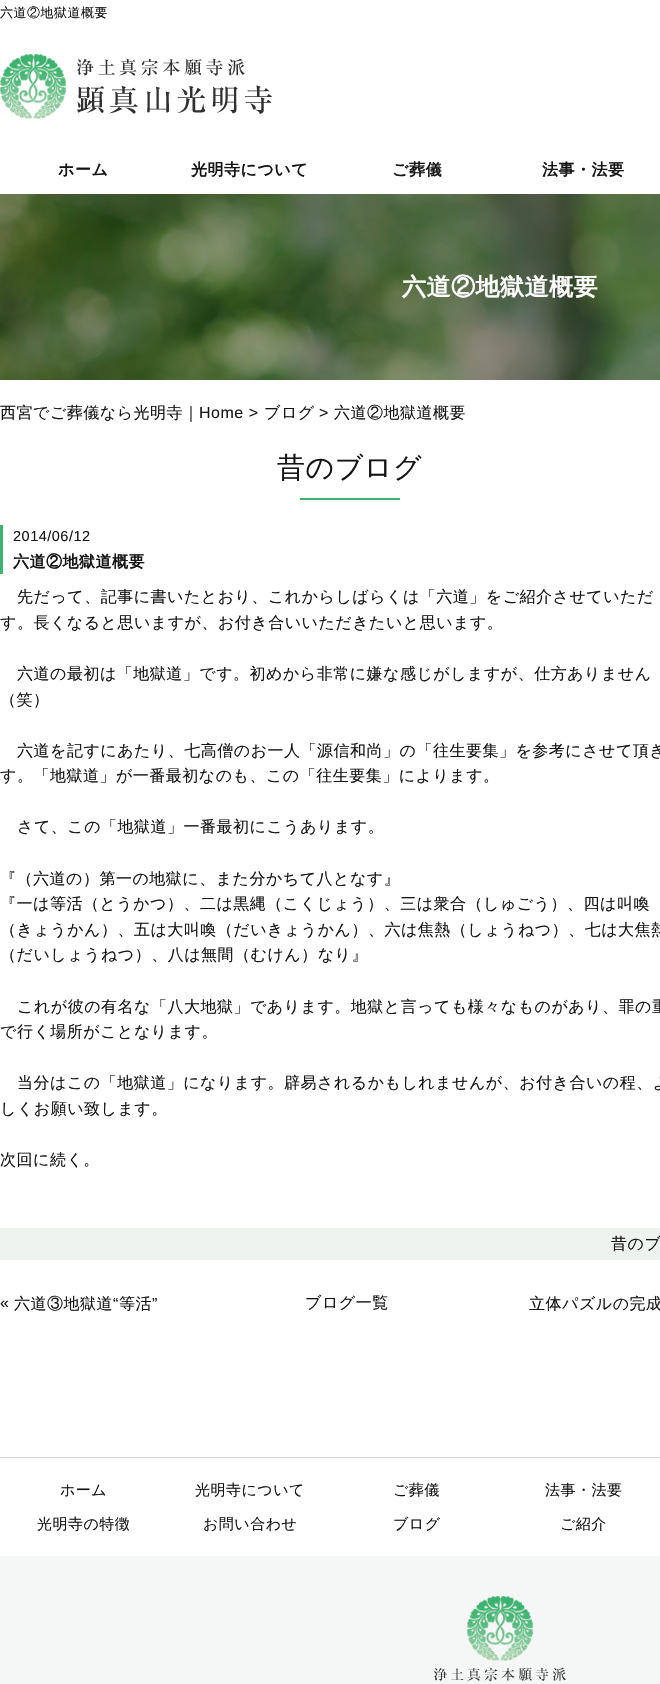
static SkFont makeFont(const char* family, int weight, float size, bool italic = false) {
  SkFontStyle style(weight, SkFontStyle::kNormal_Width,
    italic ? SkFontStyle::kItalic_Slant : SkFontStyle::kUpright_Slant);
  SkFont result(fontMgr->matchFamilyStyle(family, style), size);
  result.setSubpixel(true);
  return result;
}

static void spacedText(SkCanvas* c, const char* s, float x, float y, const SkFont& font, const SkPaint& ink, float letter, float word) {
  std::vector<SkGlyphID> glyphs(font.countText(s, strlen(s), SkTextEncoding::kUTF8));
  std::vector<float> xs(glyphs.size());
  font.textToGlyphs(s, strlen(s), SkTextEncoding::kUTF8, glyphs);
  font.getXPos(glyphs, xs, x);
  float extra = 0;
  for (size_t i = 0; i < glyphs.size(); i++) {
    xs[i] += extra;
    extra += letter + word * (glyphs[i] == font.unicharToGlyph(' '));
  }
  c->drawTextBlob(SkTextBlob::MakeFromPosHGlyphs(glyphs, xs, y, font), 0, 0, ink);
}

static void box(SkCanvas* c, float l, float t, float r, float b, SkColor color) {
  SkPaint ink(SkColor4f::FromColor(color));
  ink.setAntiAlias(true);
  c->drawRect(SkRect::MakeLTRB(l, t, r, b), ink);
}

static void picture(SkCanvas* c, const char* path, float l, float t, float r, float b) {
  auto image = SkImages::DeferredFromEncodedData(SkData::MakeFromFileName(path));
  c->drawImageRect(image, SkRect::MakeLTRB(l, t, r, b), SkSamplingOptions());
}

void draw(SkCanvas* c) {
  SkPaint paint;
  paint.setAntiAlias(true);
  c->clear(0xffffffff);
  SkFont face1 = makeFont("WenQuanYi Zen Hei", 500, 13);
  paint.setColor(0xff151515);
  spacedText(c, "六道②地獄道概要", 0, 17, face1, paint, 0.5f, 0);
  picture(c, "img_01.png", 0, 54, 272, 119);
  SkFont face2 = makeFont("WenQuanYi Zen Hei", 700, 16);
  spacedText(c, "ホーム", 58, 175, face2, paint, 0.5f, 0);
  spacedText(c, "光明寺について", 191, 175, face2, paint, 0.5f, 0);
  spacedText(c, "ご葬儀", 392, 175, face2, paint, 0.5f, 0);
  spacedText(c, "法事・法要", 542, 175, face2, paint, 0.5f, 0);
  picture(c, "img_02.png", 0, 194, 660, 380);
  SkFont face3 = makeFont("WenQuanYi Zen Hei", 700, 24);
  paint.setColor(0xffffffff);
  spacedText(c, "六道②地獄道概要", 402, 295, face3, paint, 0.5f, 0);
  SkFont face4 = makeFont("WenQuanYi Zen Hei", 500, 16);
  paint.setColor(0xff151515);
  spacedText(c, "西宮でご葬儀なら光明寺｜", 0, 418, face4, paint, 0.5f, 0);
  SkFont face5 = makeFont("Liberation Sans", 400, 16);
  spacedText(c, "Home >", 199, 418, face5, paint, 0.5f, 0);
  spacedText(c, "ブログ", 264, 418, face4, paint, 0.5f, 0);
  spacedText(c, ">", 319, 418, face5, paint, 0.5f, 0);
  spacedText(c, "六道②地獄道概要", 334, 418, face4, paint, 0.5f, 0);
  SkFont face6 = makeFont("WenQuanYi Zen Hei", 500, 28);
  spacedText(c, "昔のブログ", 277, 477, face6, paint, 0.5f, 0);
  box(c, 300, 498, 400, 500, 0xff3cb371);
  box(c, 0, 525, 3, 574, 0xff3cb371);
  SkFont face7 = makeFont("Liberation Sans", 400, 14.5f);
  spacedText(c, "2014/06/12", 13, 541, face7, paint, 0.5f, 0);
  spacedText(c, "六道②地獄道概要", 13, 567, face2, paint, 0.5f, 0);
  spacedText(c, "先だって、記事に書いたとおり、これからしばらくは「六道」をご紹介させていただ", 17, 602, face4, paint, 0.5f, 0);
  spacedText(c, "す。長くなると思いますが、お付き合いいただきたいと思います。", 0, 628, face4, paint, 0.5f, 0);
  spacedText(c, "六道の最初は「地獄道」です。初めから非常に嫌な感じがしますが、仕方ありません", 17, 679, face4, paint, 0.5f, 0);
  spacedText(c, "（笑）", 0, 705, face4, paint, 0.5f, 0);
  spacedText(c, "六道を記すにあたり、七高僧のお一人「源信和尚」の「往生要集」を参考にさせて頂き", 17, 756, face4, paint, 0.5f, 0);
  spacedText(c, "す。「地獄道」が一番最初なのも、この「往生要集」によります。", 0, 781, face4, paint, 0.5f, 0);
  spacedText(c, "さて、この「地獄道」一番最初にこうあります。", 17, 832, face4, paint, 0.5f, 0);
  spacedText(c, "『（六道の）第一の地獄に、また分かちて八となす』", 0, 884, face4, paint, 0.5f, 0);
  spacedText(c, "『一は等活（とうかつ）、二は黒縄（こくじょう）、三は衆合（しゅごう）、四は叫喚", 0, 909, face4, paint, 0.5f, 0);
  spacedText(c, "（きょうかん）、五は大叫喚（だいきょうかん）、六は焦熱（しょうねつ）、七は大焦熱", 0, 935, face4, paint, 0.5f, 0);
  spacedText(c, "（だいしょうねつ）、八は無間（むけん）なり』", 0, 960, face4, paint, 0.5f, 0);
  spacedText(c, "これが彼の有名な「八大地獄」であります。地獄と言っても様々なものがあり、罪の重", 17, 1012, face4, paint, 0.5f, 0);
  spacedText(c, "で行く場所がことなります。", 0, 1037, face4, paint, 0.5f, 0);
  spacedText(c, "当分はこの「地獄道」になります。辟易されるかもしれませんが、お付き合いの程、よ", 17, 1088, face4, paint, 0.5f, 0);
  spacedText(c, "しくお願い致します。", 0, 1114, face4, paint, 0.5f, 0);
  spacedText(c, "次回に続く。", 0, 1165, face4, paint, 0.5f, 0);
  box(c, 0, 1228, 660, 1260, 0xffeef3f0);
  spacedText(c, "昔のブ", 611, 1249, face4, paint, 0.5f, 0);
  spacedText(c, "«", 0, 1308, face5, paint, 0.5f, 0);
  spacedText(c, "六道③地獄道", 14, 1309, face4, paint, 0.5f, 0);
  spacedText(c, "“", 113, 1309, face5, paint, 0.5f, 0);
  spacedText(c, "等活", 119, 1309, face4, paint, 0.5f, 0);
  spacedText(c, "”", 152, 1309, face5, paint, 0.5f, 0);
  spacedText(c, "ブログ一覧", 305, 1308, face4, paint, 0.5f, 0);
  spacedText(c, "立体パズルの完成", 529, 1309, face4, paint, 0.5f, 0);
  box(c, 0, 1556, 660, 1684, 0xfff5f6f6);
  box(c, 0, 1457, 660, 1458, 0xffd2d2d2);
  SkFont face8 = makeFont("WenQuanYi Zen Hei", 500, 15);
  spacedText(c, "ホーム", 60, 1495, face8, paint, 0.5f, 0);
  spacedText(c, "光明寺について", 195, 1495, face8, paint, 0.5f, 0);
  spacedText(c, "ご葬儀", 393, 1495, face8, paint, 0.5f, 0);
  spacedText(c, "法事・法要", 545, 1495, face8, paint, 0.5f, 0);
  spacedText(c, "光明寺の特徴", 37, 1529, face8, paint, 0.5f, 0);
  spacedText(c, "お問い合わせ", 203, 1529, face8, paint, 0.5f, 0);
  spacedText(c, "ブログ", 393, 1529, face8, paint, 0.5f, 0);
  spacedText(c, "ご紹介", 560, 1529, face8, paint, 0.5f, 0);
  picture(c, "img_03.png", 434, 1596, 566, 1682);
}
